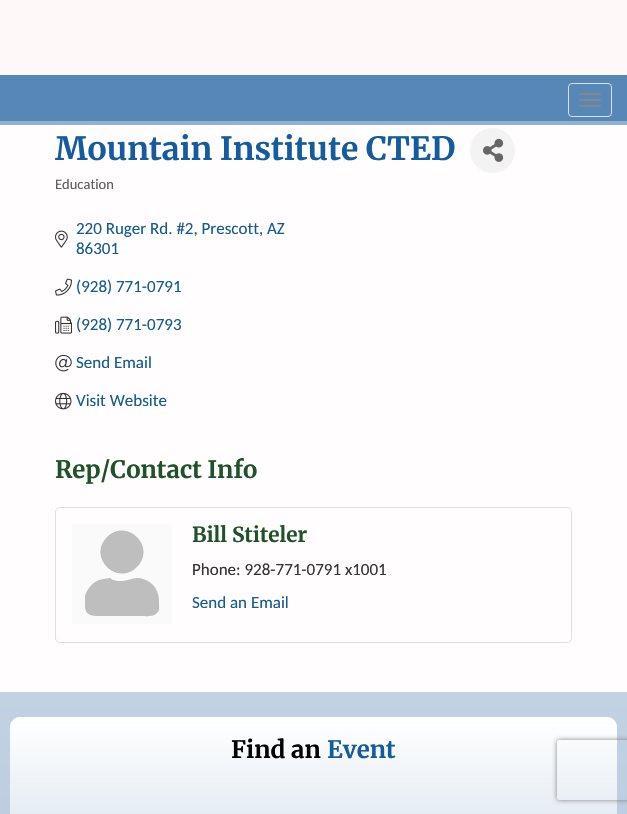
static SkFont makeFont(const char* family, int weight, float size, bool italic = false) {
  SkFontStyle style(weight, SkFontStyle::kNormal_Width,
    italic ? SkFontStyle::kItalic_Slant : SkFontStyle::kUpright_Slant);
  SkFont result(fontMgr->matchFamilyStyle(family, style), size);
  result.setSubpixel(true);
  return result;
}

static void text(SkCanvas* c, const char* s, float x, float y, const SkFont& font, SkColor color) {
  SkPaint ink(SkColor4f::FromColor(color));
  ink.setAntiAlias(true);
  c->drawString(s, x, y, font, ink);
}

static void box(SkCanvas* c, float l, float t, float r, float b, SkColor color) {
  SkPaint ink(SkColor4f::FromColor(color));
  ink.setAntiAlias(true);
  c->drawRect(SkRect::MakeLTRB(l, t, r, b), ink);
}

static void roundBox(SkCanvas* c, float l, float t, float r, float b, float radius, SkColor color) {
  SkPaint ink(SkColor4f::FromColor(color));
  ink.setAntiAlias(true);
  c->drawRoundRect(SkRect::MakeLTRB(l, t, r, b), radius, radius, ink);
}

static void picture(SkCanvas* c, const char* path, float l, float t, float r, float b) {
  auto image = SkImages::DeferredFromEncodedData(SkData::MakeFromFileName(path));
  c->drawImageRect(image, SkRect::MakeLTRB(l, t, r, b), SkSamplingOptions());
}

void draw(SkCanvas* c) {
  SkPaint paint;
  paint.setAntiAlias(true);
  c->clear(0xfffff8f8);
  box(c, 0, 75, 627, 121, 0xff5687b6);
  paint.setStyle(SkPaint::kStroke_Style);
  paint.setStrokeWidth(1);
  paint.setColor(0xffdddddd);
  c->drawRoundRect(SkRect::MakeLTRB(568.5f, 83.5f, 611.5f, 116.5f), 3.5f, 3.5f, paint);
  roundBox(c, 579, 93, 601, 95, 1, 0xff888888);
  roundBox(c, 579, 99, 601, 101, 1, 0xff888888);
  roundBox(c, 579, 105, 601, 107, 1, 0xff888888);
  box(c, 0, 125, 627, 692, 0xfffffdfd);
  box(c, 0, 121, 627, 125, 0xff91b1d0);
  SkFont face1 = makeFont("Merriweather", 700, 32);
  text(c, "Mountain Institute CTED", 55, 160, face1, 0xff145c9e);
  paint.setStyle(SkPaint::kFill_Style);
  paint.setColor(0xfff3f3f3);
  c->drawCircle(492.5f, 150.5f, 22.5f, paint);
  picture(c, "img_01.png", 483, 138, 504, 162);
  SkFont face2 = makeFont("Carlito", 400, 14.5f);
  text(c, "Education", 55, 189, face2, 0xff5c5c5c);
  picture(c, "img_02.png", 55, 230, 68, 248);
  SkFont face3 = makeFont("Carlito", 400, 17);
  text(c, "220 Ruger Rd. #2, Prescott, AZ", 76, 234, face3, 0xff145c8e);
  text(c, "86301", 76, 254, face3, 0xff145c8e);
  picture(c, "img_03.png", 55, 278, 72, 296);
  text(c, "(928) 771-0791", 76, 292, face3, 0xff145c8e);
  picture(c, "img_04.png", 55, 316, 72, 334);
  text(c, "(928) 771-0793", 76, 330, face3, 0xff145c8e);
  picture(c, "img_05.png", 55, 354, 72, 372);
  text(c, "Send Email", 76, 368, face3, 0xff145c8e);
  picture(c, "img_06.png", 55, 392, 72, 410);
  text(c, "Visit Website", 76, 406, face3, 0xff145c8e);
  SkFont face4 = makeFont("Merriweather", 700, 24);
  text(c, "Rep/Contact Info", 55, 478, face4, 0xff1e5227);
  paint.setStyle(SkPaint::kStroke_Style);
  paint.setColor(0xffdfdfdf);
  c->drawRoundRect(SkRect::MakeLTRB(55.5f, 507.5f, 571.5f, 642.5f), 4.5f, 4.5f, paint);
  box(c, 72, 524, 172, 624, 0xfffafafa);
  paint.setStyle(SkPaint::kFill_Style);
  paint.setColor(0xffbebebe);
  c->drawPath(SkPathBuilder().moveTo(137, 567).cubicTo(117, 587, 87, 557, 107, 537).cubicTo(127, 517, 157, 547, 137, 567).close().moveTo(137, 578).cubicTo(147, 578, 156, 585, 158, 594).cubicTo(159, 597, 159, 601, 159, 604).cubicTo(159, 608, 160, 611, 156, 614).cubicTo(153, 617, 145, 616, 142, 616).lineTo(103, 616).cubicTo(94, 616, 85, 617, 85, 606).lineTo(85, 596).cubicTo(87, 589, 92, 583, 99, 580).lineTo(103, 579).lineTo(110, 578).lineTo(113, 580).cubicTo(116, 581, 119, 581, 122, 581).cubicTo(127, 581, 132, 578, 137, 578).close().detach(), paint);
  SkFont face5 = makeFont("Merriweather", 700, 20.75f);
  text(c, "Bill Stiteler", 192, 542, face5, 0xff1e5227);
  text(c, "Phone: 928-771-0791 x1001", 192, 575, face3, 0xff333333);
  text(c, "Send an Email", 192, 608, face3, 0xff145c8e);
  {
    const SkColor colors[] = {0xffc2d2e3, 0xff91aecd};
    const float stops[] = {0, 1};
    const SkPoint ends[] = {{313, 692}, {314, 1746}};
    paint.setShader(SkGradientShader::MakeLinear(ends, colors, stops, 2, SkTileMode::kClamp));
    paint.setAlpha(255);
  }
  c->drawRect(SkRect::MakeLTRB(0, 692, 627, 814), paint);
  {
    const SkColor colors[] = {0xffffffff, 0x00ffffff};
    const float stops[] = {0, 1};
    const SkPoint ends[] = {{314, 717}, {314, 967}};
    paint.setShader(SkGradientShader::MakeLinear(ends, colors, stops, 2, SkTileMode::kClamp));
    paint.setAlpha(255);
  }
  c->drawPath(SkPathBuilder().moveTo(20, 717).lineTo(607, 717).cubicTo(612.5f, 717, 617, 721.5f, 617, 727).lineTo(617, 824).lineTo(10, 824).lineTo(10, 727).cubicTo(10, 721.5f, 14.5f, 717, 20, 717).close().detach(), paint);
  text(c, "Find an", 231, 758, face4, 0xff000000);
  text(c, "Event", 327, 758, face4, 0xff145c9e);
  c->save();
  c->clipPath(SkPathBuilder(SkPathFillType::kEvenOdd).moveTo(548, 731).lineTo(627, 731).lineTo(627, 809).lineTo(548, 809).close().moveTo(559, 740).lineTo(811, 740).cubicTo(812, 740, 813, 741, 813, 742).lineTo(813, 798).cubicTo(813, 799, 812, 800, 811, 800).lineTo(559, 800).cubicTo(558, 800, 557, 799, 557, 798).lineTo(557, 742).cubicTo(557, 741, 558, 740, 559, 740).close().detach(), true);
  paint.setShader(nullptr);
  paint.setColor(0xff808080);
  paint.setMaskFilter(SkMaskFilter::MakeBlur(kNormal_SkBlurStyle, 2.5f));
  c->drawRoundRect(SkRect::MakeLTRB(557, 740, 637, 800), 2, 2, paint);
  paint.setMaskFilter(nullptr);
  c->restore();
}
